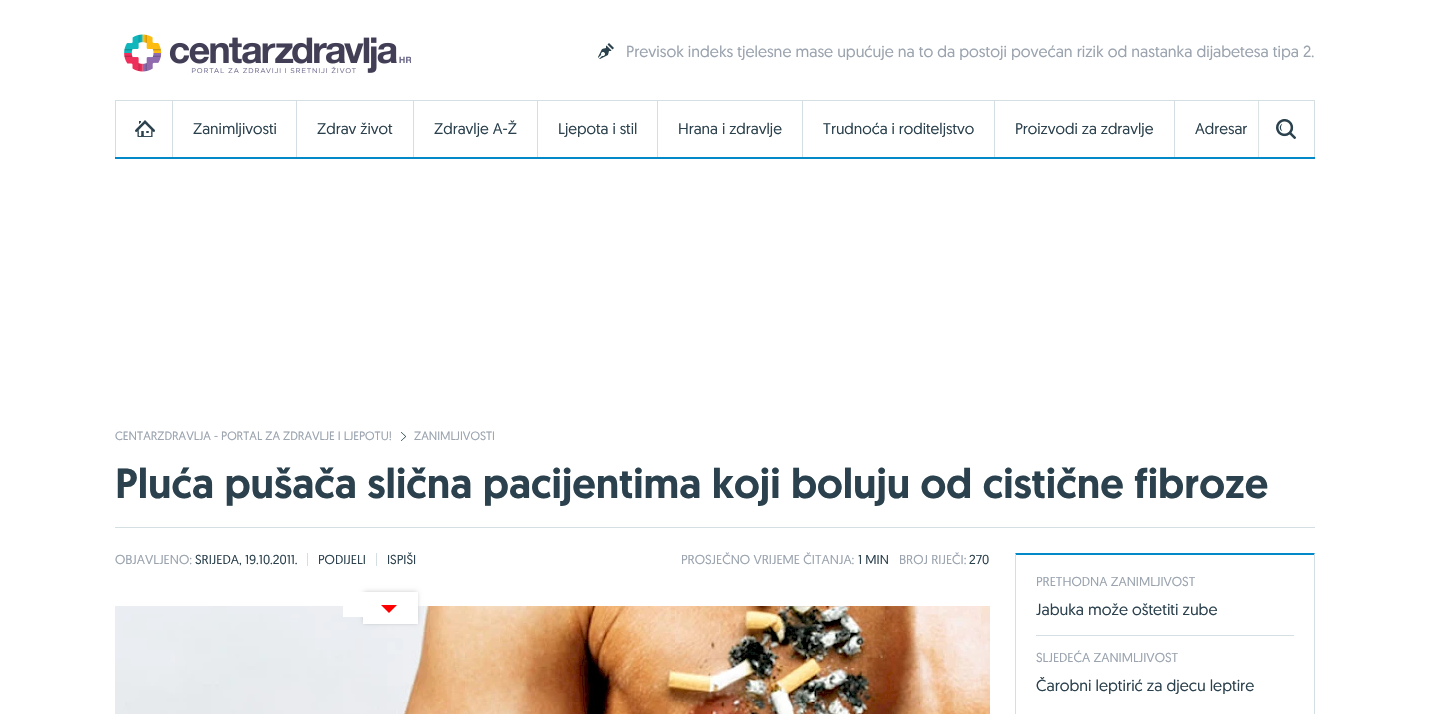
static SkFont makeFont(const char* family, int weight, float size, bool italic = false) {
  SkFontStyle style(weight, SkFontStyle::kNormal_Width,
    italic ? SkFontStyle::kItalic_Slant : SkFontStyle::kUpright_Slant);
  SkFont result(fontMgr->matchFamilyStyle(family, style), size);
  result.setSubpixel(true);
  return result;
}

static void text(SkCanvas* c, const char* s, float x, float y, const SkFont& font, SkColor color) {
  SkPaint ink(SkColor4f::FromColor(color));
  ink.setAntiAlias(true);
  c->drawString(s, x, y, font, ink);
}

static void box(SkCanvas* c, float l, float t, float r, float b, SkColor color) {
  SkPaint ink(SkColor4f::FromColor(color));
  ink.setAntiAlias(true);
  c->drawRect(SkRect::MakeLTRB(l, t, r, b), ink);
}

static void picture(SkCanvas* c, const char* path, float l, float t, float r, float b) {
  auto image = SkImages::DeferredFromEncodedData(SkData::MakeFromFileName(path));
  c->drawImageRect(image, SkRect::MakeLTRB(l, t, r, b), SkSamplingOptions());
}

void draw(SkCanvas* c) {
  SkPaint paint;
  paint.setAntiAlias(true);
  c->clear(0xffffffff);
  picture(c, "img_01.png", 124, 34, 412, 74);
  picture(c, "img_02.png", 598, 43, 614, 59);
  SkFont face1 = makeFont("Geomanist", 400, 16);
  text(c, "Previsok indeks tjelesne mase upućuje na to da postoji povećan rizik od nastanka dijabetesa tipa 2.", 626, 57, face1, 0xff9aa3ae);
  box(c, 115, 157, 1315, 159, 0xff0489c8);
  box(c, 115, 100, 1315, 101, 0xffd3dfe3);
  box(c, 1314, 100, 1315, 157, 0xffd3dfe3);
  box(c, 115, 100, 116, 157, 0xffd3dfe3);
  picture(c, "img_03.png", 135, 120, 155, 137);
  box(c, 172, 101, 173, 157, 0xffd3dfe3);
  SkFont face2 = makeFont("Geomanist", 400, 15.5f);
  text(c, "Zanimljivosti", 193, 134, face2, 0xff2b414d);
  box(c, 296, 101, 297, 157, 0xffd3dfe3);
  text(c, "Zdrav život", 317, 134, face2, 0xff2b414d);
  box(c, 413, 101, 414, 157, 0xffd3dfe3);
  text(c, "Zdravlje A-Ž", 434, 134, face2, 0xff2b414d);
  box(c, 537, 101, 538, 157, 0xffd3dfe3);
  text(c, "Ljepota i stil", 558, 134, face2, 0xff2b414d);
  box(c, 657, 101, 658, 157, 0xffd3dfe3);
  text(c, "Hrana i zdravlje", 678, 134, face2, 0xff2b414d);
  box(c, 802, 101, 803, 157, 0xffd3dfe3);
  text(c, "Trudnoća i roditeljstvo", 823, 134, face2, 0xff2b414d);
  box(c, 994, 101, 995, 157, 0xffd3dfe3);
  text(c, "Proizvodi za zdravlje", 1015, 134, face2, 0xff2b414d);
  box(c, 1174, 101, 1175, 157, 0xffd3dfe3);
  text(c, "Adresar", 1195, 134, face2, 0xff2b414d);
  box(c, 1258, 101, 1259, 157, 0xffdbe3e5);
  picture(c, "img_04.png", 1276, 119, 1296, 139);
  SkFont face3 = makeFont("Geomanist", 400, 12);
  text(c, "CENTARZDRAVLJA - PORTAL ZA ZDRAVLJE I LJEPOTU!", 115, 440, face3, 0xff9aa3ae);
  picture(c, "img_05.png", 401, 432, 406, 441);
  text(c, "ZANIMLJIVOSTI", 414, 440, face3, 0xff9aa3ae);
  box(c, 115, 527, 1315, 528, 0xffd3dfe3);
  SkFont face4 = makeFont("Geomanist", 500, 42);
  text(c, "Pluća pušača slična pacijentima koji boluju od cistične fibroze", 115, 498, face4, 0xff2b414d);
  SkFont face5 = makeFont("Geomanist", 400, 13);
  text(c, "OBJAVLJENO:", 115, 564, face5, 0xff9aa3ae);
  text(c, "SRIJEDA, 19.10.2011.", 195, 564, face5, 0xff2b414d);
  box(c, 307, 553, 308, 566, 0xffd3dfe3);
  text(c, "PODIJELI", 318, 564, face5, 0xff2b414d);
  box(c, 376, 553, 377, 566, 0xffd3dfe3);
  text(c, "ISPIŠI", 387, 564, face5, 0xff2b414d);
  text(c, "PROSJEČNO VRIJEME ČITANJA:", 681, 564, face5, 0xff9aa3ae);
  text(c, "1 MIN", 858, 564, face5, 0xff2b414d);
  text(c, "BROJ RIJEČI:", 899, 564, face5, 0xff9aa3ae);
  text(c, "270", 969, 564, face5, 0xff2b414d);
  picture(c, "img_06.png", 115, 606, 990, 714);
  paint.setColor(0xff0489c8);
  c->drawPath(SkPathBuilder().moveTo(1015, 553).lineTo(1315, 553).lineTo(1314, 555).lineTo(1016, 555).close().detach(), paint);
  paint.setColor(0xffd3dfe3);
  c->drawPath(SkPathBuilder().moveTo(1315, 553).lineTo(1315, 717).lineTo(1314, 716).lineTo(1314, 555).close().detach(), paint);
  c->drawPath(SkPathBuilder().moveTo(1015, 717).lineTo(1015, 553).lineTo(1016, 555).lineTo(1016, 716).close().detach(), paint);
  text(c, "PRETHODNA ZANIMLJIVOST", 1036, 586, face5, 0xff9aa3ae);
  text(c, "Jabuka može oštetiti zube", 1036, 615, face1, 0xff2b414d);
  box(c, 1036, 635, 1294, 636, 0xffd3dfe3);
  text(c, "SLJEDEĆA ZANIMLJIVOST", 1036, 662, face5, 0xff9aa3ae);
  text(c, "Čarobni leptirić za djecu leptire", 1036, 691, face1, 0xff2b414d);
  paint.setColor(0x1a000000);
  paint.setMaskFilter(SkMaskFilter::MakeBlur(kNormal_SkBlurStyle, 1));
  c->drawRect(SkRect::MakeLTRB(364, 594, 417, 624), paint);
  paint.setMaskFilter(nullptr);
  paint.setColor(0x33000000);
  paint.setMaskFilter(SkMaskFilter::MakeBlur(kNormal_SkBlurStyle, 2.5f));
  c->drawRect(SkRect::MakeLTRB(364, 592, 417, 622), paint);
  paint.setMaskFilter(nullptr);
  box(c, 343, 592, 363, 617, 0xffffffff);
  box(c, 363, 592, 418, 624, 0xffffffff);
  paint.setColor(0xffff0000);
  c->drawPath(SkPathBuilder().moveTo(381, 605).lineTo(397, 605).lineTo(389, 613).close().detach(), paint);
}
